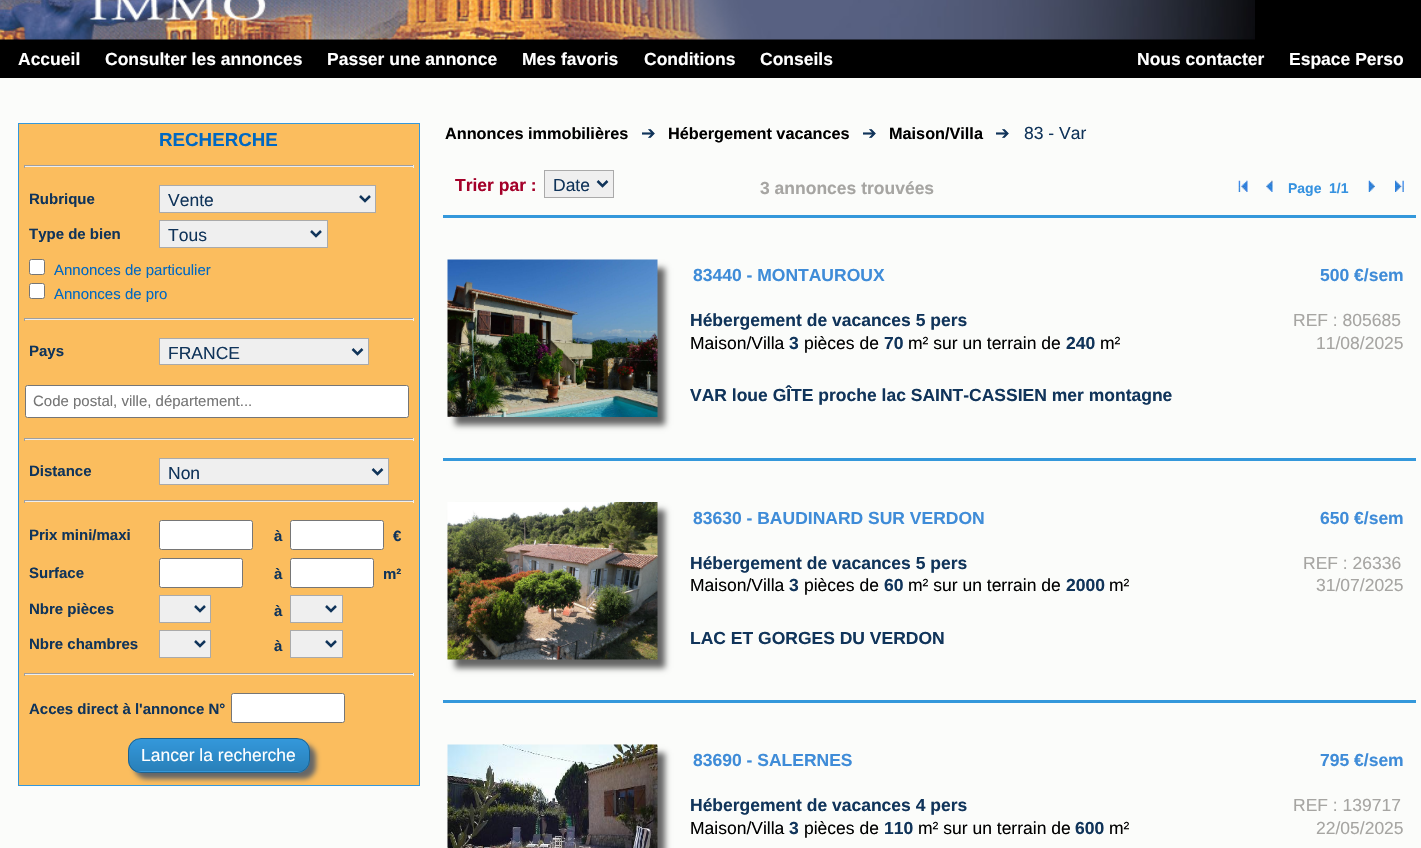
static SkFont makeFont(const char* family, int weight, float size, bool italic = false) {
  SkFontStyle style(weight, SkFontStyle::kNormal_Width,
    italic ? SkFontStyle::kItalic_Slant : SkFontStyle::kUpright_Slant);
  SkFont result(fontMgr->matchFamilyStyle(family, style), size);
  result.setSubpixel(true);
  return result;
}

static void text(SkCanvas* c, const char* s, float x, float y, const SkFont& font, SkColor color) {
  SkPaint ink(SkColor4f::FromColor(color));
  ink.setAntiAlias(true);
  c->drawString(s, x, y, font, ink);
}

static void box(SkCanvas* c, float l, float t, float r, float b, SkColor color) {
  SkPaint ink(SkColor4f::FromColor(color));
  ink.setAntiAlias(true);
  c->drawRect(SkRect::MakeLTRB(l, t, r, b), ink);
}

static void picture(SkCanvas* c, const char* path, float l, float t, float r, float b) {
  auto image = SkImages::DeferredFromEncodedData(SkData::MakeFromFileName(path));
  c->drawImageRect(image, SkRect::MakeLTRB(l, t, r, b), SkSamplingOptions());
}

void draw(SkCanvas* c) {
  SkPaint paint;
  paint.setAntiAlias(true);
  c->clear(0xff000000);
  picture(c, "img_01.png", 0, 0, 1255, 40);
  SkFont face1 = makeFont("Liberation Sans", 700, 17.5f);
  text(c, "Accueil", 18, 65, face1, 0xffffffff);
  text(c, "Consulter les annonces", 105, 65, face1, 0xffffffff);
  text(c, "Passer une annonce", 327, 65, face1, 0xffffffff);
  text(c, "Mes favoris", 522, 65, face1, 0xffffffff);
  text(c, "Conditions", 644, 65, face1, 0xffffffff);
  text(c, "Conseils", 760, 65, face1, 0xffffffff);
  text(c, "Nous contacter", 1137, 65, face1, 0xffffffff);
  text(c, "Espace Perso", 1289, 65, face1, 0xffffffff);
  box(c, 0, 78, 1421, 848, 0xfffbfcfa);
  paint.setColor(0xfffbbd5e);
  c->drawRect(SkRect::MakeLTRB(18.5f, 123.5f, 419.5f, 785.5f), paint);
  paint.setStyle(SkPaint::kStroke_Style);
  paint.setStrokeWidth(1);
  paint.setColor(0xff3498db);
  c->drawRect(SkRect::MakeLTRB(18.5f, 123.5f, 419.5f, 785.5f), paint);
  SkFont face2 = makeFont("Liberation Sans", 700, 18.75f);
  text(c, "RECHERCHE", 159, 146, face2, 0xff0068c2);
  box(c, 24, 165, 414, 166, 0xff9f9f9f);
  box(c, 413, 165, 414, 168, 0xffeeeeee);
  box(c, 24, 166, 414, 167, 0xffeeeeee);
  box(c, 24, 165, 25, 168, 0xff9f9f9f);
  SkFont face3 = makeFont("Liberation Sans", 700, 15);
  text(c, "Rubrique", 29, 204, face3, 0xff10345a);
  paint.setStyle(SkPaint::kFill_Style);
  paint.setColor(0xffefefef);
  c->drawRect(SkRect::MakeLTRB(159.5f, 185.5f, 375.5f, 212.5f), paint);
  paint.setStyle(SkPaint::kStroke_Style);
  paint.setColor(0xffaaaaaa);
  c->drawRect(SkRect::MakeLTRB(159.5f, 185.5f, 375.5f, 212.5f), paint);
  paint.setStrokeWidth(2.5f);
  paint.setColor(0xff10345a);
  c->drawPath(SkPathBuilder().moveTo(360, 196).lineTo(365, 201).lineTo(370, 196).detach(), paint);
  SkFont face4 = makeFont("Liberation Sans", 400, 17.5f);
  text(c, "Vente", 168, 206, face4, 0xff10345a);
  text(c, "Type de bien", 29, 239, face3, 0xff10345a);
  paint.setStyle(SkPaint::kFill_Style);
  paint.setColor(0xffefefef);
  c->drawRect(SkRect::MakeLTRB(159.5f, 220.5f, 327.5f, 247.5f), paint);
  paint.setStyle(SkPaint::kStroke_Style);
  paint.setStrokeWidth(1);
  paint.setColor(0xffaaaaaa);
  c->drawRect(SkRect::MakeLTRB(159.5f, 220.5f, 327.5f, 247.5f), paint);
  paint.setStrokeWidth(2.5f);
  paint.setColor(0xff10345a);
  c->drawPath(SkPathBuilder().moveTo(311, 231).lineTo(316, 236).lineTo(321, 231).detach(), paint);
  text(c, "Tous", 168, 241, face4, 0xff10345a);
  paint.setStyle(SkPaint::kFill_Style);
  paint.setColor(0xffffffff);
  c->drawRoundRect(SkRect::MakeLTRB(29.5f, 259.5f, 44.5f, 274.5f), 2, 2, paint);
  paint.setStyle(SkPaint::kStroke_Style);
  paint.setStrokeWidth(1);
  paint.setColor(0xff767676);
  c->drawRoundRect(SkRect::MakeLTRB(29.5f, 259.5f, 44.5f, 274.5f), 2, 2, paint);
  SkFont face5 = makeFont("Liberation Sans", 400, 15);
  text(c, "Annonces de particulier", 54, 275, face5, 0xff0068c2);
  paint.setStyle(SkPaint::kFill_Style);
  paint.setColor(0xffffffff);
  c->drawRoundRect(SkRect::MakeLTRB(29.5f, 283.5f, 44.5f, 298.5f), 2, 2, paint);
  paint.setStyle(SkPaint::kStroke_Style);
  paint.setColor(0xff767676);
  c->drawRoundRect(SkRect::MakeLTRB(29.5f, 283.5f, 44.5f, 298.5f), 2, 2, paint);
  text(c, "Annonces de pro", 54, 299, face5, 0xff0068c2);
  box(c, 24, 318, 414, 319, 0xff9f9f9f);
  box(c, 413, 318, 414, 321, 0xffeeeeee);
  box(c, 24, 319, 414, 320, 0xffeeeeee);
  box(c, 24, 318, 25, 321, 0xff9f9f9f);
  text(c, "Pays", 29, 356, face3, 0xff10345a);
  paint.setStyle(SkPaint::kFill_Style);
  paint.setColor(0xffefefef);
  c->drawRect(SkRect::MakeLTRB(159.5f, 338.5f, 368.5f, 364.5f), paint);
  paint.setStyle(SkPaint::kStroke_Style);
  paint.setColor(0xffaaaaaa);
  c->drawRect(SkRect::MakeLTRB(159.5f, 338.5f, 368.5f, 364.5f), paint);
  paint.setStrokeWidth(2.5f);
  paint.setColor(0xff10345a);
  c->drawPath(SkPathBuilder().moveTo(352.5f, 349).lineTo(357.5f, 354).lineTo(362.5f, 349).detach(), paint);
  text(c, "FRANCE", 168, 359, face4, 0xff10345a);
  paint.setStyle(SkPaint::kFill_Style);
  paint.setColor(0xffffffff);
  c->drawRoundRect(SkRect::MakeLTRB(25.5f, 385.5f, 408.5f, 417.5f), 2, 2, paint);
  paint.setStyle(SkPaint::kStroke_Style);
  paint.setStrokeWidth(1);
  paint.setColor(0xff767676);
  c->drawRoundRect(SkRect::MakeLTRB(25.5f, 385.5f, 408.5f, 417.5f), 2, 2, paint);
  text(c, "Code postal, ville, département...", 33, 406, face5, 0xff757575);
  box(c, 24, 438, 414, 439, 0xff9f9f9f);
  box(c, 413, 438, 414, 441, 0xffeeeeee);
  box(c, 24, 439, 414, 440, 0xffeeeeee);
  box(c, 24, 438, 25, 441, 0xff9f9f9f);
  text(c, "Distance", 29, 476, face3, 0xff10345a);
  paint.setStyle(SkPaint::kFill_Style);
  paint.setColor(0xffefefef);
  c->drawRect(SkRect::MakeLTRB(159.5f, 458.5f, 388.5f, 484.5f), paint);
  paint.setStyle(SkPaint::kStroke_Style);
  paint.setColor(0xffaaaaaa);
  c->drawRect(SkRect::MakeLTRB(159.5f, 458.5f, 388.5f, 484.5f), paint);
  paint.setStrokeWidth(2.5f);
  paint.setColor(0xff10345a);
  c->drawPath(SkPathBuilder().moveTo(372.5f, 469).lineTo(377.5f, 474).lineTo(382.5f, 469).detach(), paint);
  text(c, "Non", 168, 479, face4, 0xff10345a);
  box(c, 24, 500, 414, 501, 0xff9f9f9f);
  box(c, 413, 500, 414, 503, 0xffeeeeee);
  box(c, 24, 501, 414, 502, 0xffeeeeee);
  box(c, 24, 500, 25, 503, 0xff9f9f9f);
  text(c, "Prix mini/maxi", 29, 540, face3, 0xff10345a);
  paint.setStyle(SkPaint::kFill_Style);
  paint.setColor(0xffffffff);
  c->drawRoundRect(SkRect::MakeLTRB(159.5f, 520.5f, 252.5f, 549.5f), 2, 2, paint);
  paint.setStyle(SkPaint::kStroke_Style);
  paint.setStrokeWidth(1);
  paint.setColor(0xff767676);
  c->drawRoundRect(SkRect::MakeLTRB(159.5f, 520.5f, 252.5f, 549.5f), 2, 2, paint);
  text(c, "à", 274, 541, face3, 0xff10345a);
  paint.setStyle(SkPaint::kFill_Style);
  paint.setColor(0xffffffff);
  c->drawRoundRect(SkRect::MakeLTRB(290.5f, 520.5f, 383.5f, 549.5f), 2, 2, paint);
  paint.setStyle(SkPaint::kStroke_Style);
  paint.setColor(0xff767676);
  c->drawRoundRect(SkRect::MakeLTRB(290.5f, 520.5f, 383.5f, 549.5f), 2, 2, paint);
  text(c, "€", 393, 541, face3, 0xff10345a);
  text(c, "Surface", 29, 578, face3, 0xff10345a);
  paint.setStyle(SkPaint::kFill_Style);
  paint.setColor(0xffffffff);
  c->drawRoundRect(SkRect::MakeLTRB(159.5f, 558.5f, 242.5f, 587.5f), 2, 2, paint);
  paint.setStyle(SkPaint::kStroke_Style);
  paint.setColor(0xff767676);
  c->drawRoundRect(SkRect::MakeLTRB(159.5f, 558.5f, 242.5f, 587.5f), 2, 2, paint);
  text(c, "à", 274, 579, face3, 0xff10345a);
  paint.setStyle(SkPaint::kFill_Style);
  paint.setColor(0xffffffff);
  c->drawRoundRect(SkRect::MakeLTRB(290.5f, 558.5f, 373.5f, 587.5f), 2, 2, paint);
  paint.setStyle(SkPaint::kStroke_Style);
  paint.setColor(0xff767676);
  c->drawRoundRect(SkRect::MakeLTRB(290.5f, 558.5f, 373.5f, 587.5f), 2, 2, paint);
  text(c, "m²", 383, 579, face3, 0xff10345a);
  text(c, "Nbre pièces", 29, 614, face3, 0xff10345a);
  paint.setStyle(SkPaint::kFill_Style);
  paint.setColor(0xffefefef);
  c->drawRect(SkRect::MakeLTRB(159.5f, 595.5f, 210.5f, 622.5f), paint);
  paint.setStyle(SkPaint::kStroke_Style);
  paint.setColor(0xffaaaaaa);
  c->drawRect(SkRect::MakeLTRB(159.5f, 595.5f, 210.5f, 622.5f), paint);
  paint.setStrokeWidth(2.5f);
  paint.setColor(0xff10345a);
  c->drawPath(SkPathBuilder().moveTo(195, 606).lineTo(200, 611).lineTo(205, 606).detach(), paint);
  text(c, "à", 274, 616, face3, 0xff10345a);
  paint.setStyle(SkPaint::kFill_Style);
  paint.setColor(0xffefefef);
  c->drawRect(SkRect::MakeLTRB(290.5f, 595.5f, 342.5f, 622.5f), paint);
  paint.setStyle(SkPaint::kStroke_Style);
  paint.setStrokeWidth(1);
  paint.setColor(0xffaaaaaa);
  c->drawRect(SkRect::MakeLTRB(290.5f, 595.5f, 342.5f, 622.5f), paint);
  paint.setStrokeWidth(2.5f);
  paint.setColor(0xff10345a);
  c->drawPath(SkPathBuilder().moveTo(326, 606).lineTo(331, 611).lineTo(336, 606).detach(), paint);
  text(c, "Nbre chambres", 29, 649, face3, 0xff10345a);
  paint.setStyle(SkPaint::kFill_Style);
  paint.setColor(0xffefefef);
  c->drawRect(SkRect::MakeLTRB(159.5f, 630.5f, 210.5f, 657.5f), paint);
  paint.setStyle(SkPaint::kStroke_Style);
  paint.setStrokeWidth(1);
  paint.setColor(0xffaaaaaa);
  c->drawRect(SkRect::MakeLTRB(159.5f, 630.5f, 210.5f, 657.5f), paint);
  paint.setStrokeWidth(2.5f);
  paint.setColor(0xff10345a);
  c->drawPath(SkPathBuilder().moveTo(195, 641).lineTo(200, 646).lineTo(205, 641).detach(), paint);
  text(c, "à", 274, 651, face3, 0xff10345a);
  paint.setStyle(SkPaint::kFill_Style);
  paint.setColor(0xffefefef);
  c->drawRect(SkRect::MakeLTRB(290.5f, 630.5f, 342.5f, 657.5f), paint);
  paint.setStyle(SkPaint::kStroke_Style);
  paint.setStrokeWidth(1);
  paint.setColor(0xffaaaaaa);
  c->drawRect(SkRect::MakeLTRB(290.5f, 630.5f, 342.5f, 657.5f), paint);
  paint.setStrokeWidth(2.5f);
  paint.setColor(0xff10345a);
  c->drawPath(SkPathBuilder().moveTo(326, 641).lineTo(331, 646).lineTo(336, 641).detach(), paint);
  box(c, 24, 673, 414, 674, 0xff9f9f9f);
  box(c, 413, 673, 414, 676, 0xffeeeeee);
  box(c, 24, 674, 414, 675, 0xffeeeeee);
  box(c, 24, 673, 25, 676, 0xff9f9f9f);
  text(c, "Acces direct à l'annonce N°", 29, 714, face3, 0xff10345a);
  paint.setStyle(SkPaint::kFill_Style);
  paint.setColor(0xffffffff);
  c->drawRoundRect(SkRect::MakeLTRB(231.5f, 693.5f, 344.5f, 722.5f), 2, 2, paint);
  paint.setStyle(SkPaint::kStroke_Style);
  paint.setStrokeWidth(1);
  paint.setColor(0xff767676);
  c->drawRoundRect(SkRect::MakeLTRB(231.5f, 693.5f, 344.5f, 722.5f), 2, 2, paint);
  paint.setStyle(SkPaint::kFill_Style);
  paint.setColor(0xff666666);
  paint.setMaskFilter(SkMaskFilter::MakeBlur(kNormal_SkBlurStyle, 2.5f));
  c->drawRoundRect(SkRect::MakeLTRB(134, 744, 316, 779), 13, 13, paint);
  paint.setMaskFilter(nullptr);
  c->save();
  c->clipPath(SkPathBuilder().moveTo(141, 738).lineTo(297, 738).cubicTo(304, 738, 310, 744, 310, 751).lineTo(310, 760).cubicTo(310, 767, 304, 773, 297, 773).lineTo(141, 773).cubicTo(134, 773, 128, 767, 128, 760).lineTo(128, 751).cubicTo(128, 744, 134, 738, 141, 738).close().detach(), true);
  {
    const SkColor colors[] = {0xff3498db, 0xff2980b9};
    const float stops[] = {0, 1};
    const SkPoint ends[] = {{219, 739}, {219, 771}};
    paint.setShader(SkGradientShader::MakeLinear(ends, colors, stops, 2, SkTileMode::kClamp));
    paint.setAlpha(255);
  }
  c->drawRect(SkRect::MakeLTRB(128, 739, 310, 771), paint);
  {
    const SkColor colors[] = {0xff3498db, 0xff2980b9};
    const float stops[] = {0, 1};
    const SkPoint ends[] = {{219, 771}, {219, 804}};
    paint.setShader(SkGradientShader::MakeLinear(ends, colors, stops, 2, SkTileMode::kClamp));
    paint.setAlpha(255);
  }
  c->drawRect(SkRect::MakeLTRB(128, 771, 310, 773), paint);
  c->restore();
  paint.setStyle(SkPaint::kStroke_Style);
  paint.setShader(nullptr);
  paint.setColor(0xff1f628d);
  c->drawRoundRect(SkRect::MakeLTRB(128.5f, 738.5f, 309.5f, 772.5f), 12.5f, 12.5f, paint);
  text(c, "Lancer la recherche", 141, 761, face4, 0xffffffff);
  SkFont face6 = makeFont("Liberation Sans", 700, 16.25f);
  text(c, "Annonces immobilières", 445, 139, face6, 0xff000000);
  SkFont face7 = makeFont("DejaVu Sans", 400, 17.5f);
  text(c, "➔", 641, 139, face7, 0xff10345a);
  text(c, "Hébergement vacances", 668, 139, face6, 0xff000000);
  text(c, "➔", 862, 139, face7, 0xff10345a);
  text(c, "Maison/Villa", 889, 139, face6, 0xff000000);
  text(c, "➔", 995, 139, face7, 0xff10345a);
  text(c, "83 - Var", 1024, 139, face4, 0xff10345a);
  text(c, "Trier par :", 455, 191, face1, 0xffa40029);
  paint.setStyle(SkPaint::kFill_Style);
  paint.setColor(0xffefefef);
  c->drawRect(SkRect::MakeLTRB(544.5f, 170.5f, 613.5f, 197.5f), paint);
  paint.setStyle(SkPaint::kStroke_Style);
  paint.setColor(0xffaaaaaa);
  c->drawRect(SkRect::MakeLTRB(544.5f, 170.5f, 613.5f, 197.5f), paint);
  paint.setStrokeWidth(2.5f);
  paint.setColor(0xff10345a);
  c->drawPath(SkPathBuilder().moveTo(597.5f, 181).lineTo(602.5f, 186).lineTo(607.5f, 181).detach(), paint);
  text(c, "Date", 553, 191, face4, 0xff10345a);
  text(c, "3 annonces trouvées", 760, 194, face1, 0xffa6a5a2);
  picture(c, "img_02.png", 1238, 180, 1248, 192);
  picture(c, "img_03.png", 1266, 180, 1273, 192);
  SkFont face8 = makeFont("Liberation Sans", 700, 14);
  text(c, "Page", 1288, 193, face8, 0xff3592e0);
  text(c, "1/1", 1329, 193, face8, 0xff3592e0);
  picture(c, "img_04.png", 1368, 180, 1375, 192);
  picture(c, "img_05.png", 1395, 180, 1404, 192);
  box(c, 443, 215, 1416, 218, 0xff3498db);
  paint.setStyle(SkPaint::kFill_Style);
  paint.setColor(0xff656565);
  paint.setMaskFilter(SkMaskFilter::MakeBlur(kNormal_SkBlurStyle, 3));
  c->drawRect(SkRect::MakeLTRB(455, 268, 665, 425), paint);
  paint.setMaskFilter(nullptr);
  picture(c, "img_06.png", 447, 259, 658, 417);
  text(c, "83440 - MONTAUROUX", 693, 281, face1, 0xff3f8cd8);
  text(c, "500 €/sem", 1320, 281, face1, 0xff3f8cd8);
  text(c, "Hébergement de vacances 5 pers", 690, 326, face1, 0xff10345a);
  text(c, "REF : 805685", 1293, 326, face4, 0xffa6a5a2);
  text(c, "Maison/Villa", 690, 349, face4, 0xff000000);
  text(c, "3", 789, 349, face1, 0xff10345a);
  text(c, "pièces de", 804, 349, face4, 0xff000000);
  text(c, "70", 884, 349, face1, 0xff10345a);
  text(c, "m² sur un terrain de", 908, 349, face4, 0xff000000);
  text(c, "240", 1066, 349, face1, 0xff10345a);
  text(c, "m²", 1100, 349, face4, 0xff000000);
  text(c, "11/08/2025", 1316, 349, face4, 0xffa6a5a2);
  text(c, "VAR loue GÎTE proche lac SAINT-CASSIEN mer montagne", 690, 401, face1, 0xff10345a);
  box(c, 443, 458, 1416, 461, 0xff3498db);
  paint.setMaskFilter(SkMaskFilter::MakeBlur(kNormal_SkBlurStyle, 3));
  c->drawRect(SkRect::MakeLTRB(455, 510, 665, 668), paint);
  paint.setMaskFilter(nullptr);
  picture(c, "img_07.png", 447, 502, 658, 660);
  text(c, "83630 - BAUDINARD SUR VERDON", 693, 524, face1, 0xff3f8cd8);
  text(c, "650 €/sem", 1320, 524, face1, 0xff3f8cd8);
  text(c, "Hébergement de vacances 5 pers", 690, 569, face1, 0xff10345a);
  text(c, "REF : 26336", 1303, 569, face4, 0xffa6a5a2);
  text(c, "Maison/Villa", 690, 591, face4, 0xff000000);
  text(c, "3", 789, 591, face1, 0xff10345a);
  text(c, "pièces de", 804, 591, face4, 0xff000000);
  text(c, "60", 884, 591, face1, 0xff10345a);
  text(c, "m² sur un terrain de", 908, 591, face4, 0xff000000);
  text(c, "2000", 1066, 591, face1, 0xff10345a);
  text(c, "m²", 1109, 591, face4, 0xff000000);
  text(c, "31/07/2025", 1316, 591, face4, 0xffa6a5a2);
  text(c, "LAC ET GORGES DU VERDON", 690, 644, face1, 0xff10345a);
  box(c, 443, 700, 1416, 703, 0xff3498db);
  paint.setMaskFilter(SkMaskFilter::MakeBlur(kNormal_SkBlurStyle, 3));
  c->drawRect(SkRect::MakeLTRB(455, 753, 665, 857), paint);
  paint.setMaskFilter(nullptr);
  picture(c, "img_08.png", 447, 744, 658, 848);
  text(c, "83690 - SALERNES", 693, 766, face1, 0xff3f8cd8);
  text(c, "795 €/sem", 1320, 766, face1, 0xff3f8cd8);
  text(c, "Hébergement de vacances 4 pers", 690, 811, face1, 0xff10345a);
  text(c, "REF : 139717", 1293, 811, face4, 0xffa6a5a2);
  text(c, "Maison/Villa", 690, 834, face4, 0xff000000);
  text(c, "3", 789, 834, face1, 0xff10345a);
  text(c, "pièces de", 804, 834, face4, 0xff000000);
  text(c, "110", 884, 834, face1, 0xff10345a);
  text(c, "m² sur un terrain de", 918, 834, face4, 0xff000000);
  text(c, "600", 1075, 834, face1, 0xff10345a);
  text(c, "m²", 1109, 834, face4, 0xff000000);
  text(c, "22/05/2025", 1316, 834, face4, 0xffa6a5a2);
}
